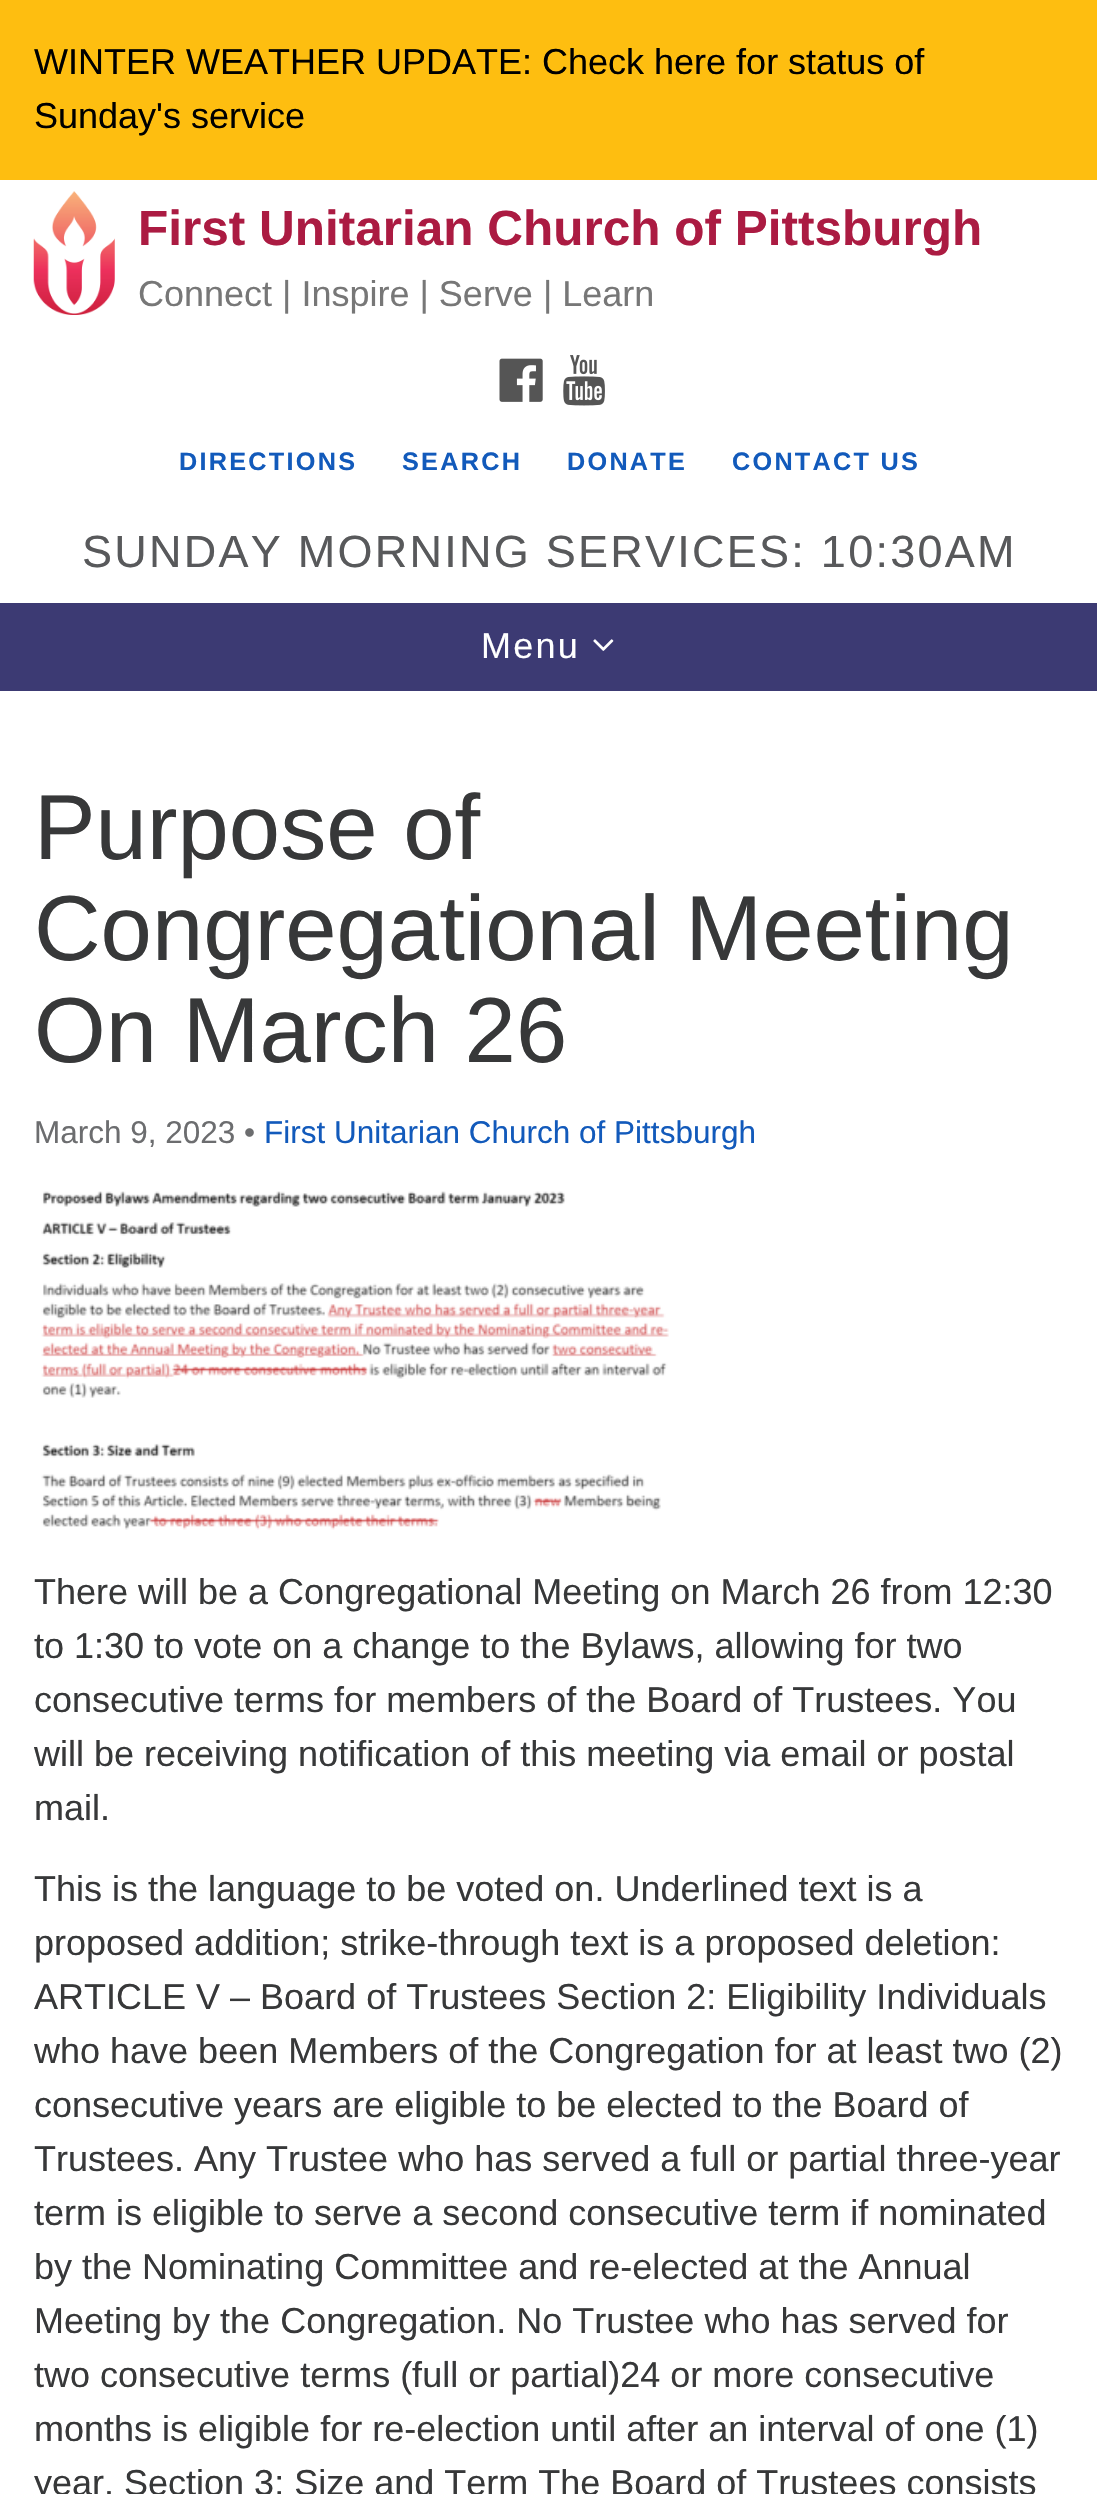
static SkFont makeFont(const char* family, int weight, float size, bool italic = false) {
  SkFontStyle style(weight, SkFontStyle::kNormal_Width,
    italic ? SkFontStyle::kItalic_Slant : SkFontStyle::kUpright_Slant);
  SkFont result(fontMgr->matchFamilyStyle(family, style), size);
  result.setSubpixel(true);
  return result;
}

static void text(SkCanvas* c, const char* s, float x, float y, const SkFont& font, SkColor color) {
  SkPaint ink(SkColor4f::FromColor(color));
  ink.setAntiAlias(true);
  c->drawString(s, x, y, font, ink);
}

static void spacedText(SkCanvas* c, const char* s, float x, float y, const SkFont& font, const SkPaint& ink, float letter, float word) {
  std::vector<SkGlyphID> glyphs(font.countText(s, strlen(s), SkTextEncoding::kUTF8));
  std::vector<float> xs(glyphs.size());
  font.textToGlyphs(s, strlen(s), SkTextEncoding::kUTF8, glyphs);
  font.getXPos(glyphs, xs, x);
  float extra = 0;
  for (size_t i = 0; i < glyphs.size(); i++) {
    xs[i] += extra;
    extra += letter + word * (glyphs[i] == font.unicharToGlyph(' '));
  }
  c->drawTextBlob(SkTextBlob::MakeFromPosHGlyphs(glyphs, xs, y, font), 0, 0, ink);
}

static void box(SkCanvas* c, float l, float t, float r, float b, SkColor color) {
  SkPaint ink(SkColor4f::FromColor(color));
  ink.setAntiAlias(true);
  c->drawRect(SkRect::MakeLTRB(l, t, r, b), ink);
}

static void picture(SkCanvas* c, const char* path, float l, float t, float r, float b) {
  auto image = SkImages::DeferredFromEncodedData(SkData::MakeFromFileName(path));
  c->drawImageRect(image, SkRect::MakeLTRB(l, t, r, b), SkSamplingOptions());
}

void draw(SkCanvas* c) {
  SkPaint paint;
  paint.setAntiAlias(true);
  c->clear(0xfffebe10);
  SkFont face1 = makeFont("Liberation Sans", 400, 36);
  text(c, "WINTER WEATHER UPDATE: Check here for status of", 34, 74, face1, 0xff000000);
  text(c, "Sunday's service", 34, 128, face1, 0xff000000);
  box(c, 0, 180, 1097, 603, 0xffffffff);
  picture(c, "img_01.png", 33, 191, 115, 315);
  SkFont face2 = makeFont("Liberation Sans", 700, 49.5f);
  text(c, "First Unitarian Church of Pittsburgh", 138, 245, face2, 0xffab1b42);
  text(c, "Connect | Inspire | Serve | Learn", 138, 306, face1, 0xff777777);
  picture(c, "img_02.png", 499, 358, 543, 402);
  picture(c, "img_03.png", 563, 355, 605, 406);
  SkFont face3 = makeFont("Liberation Sans", 700, 25.25f);
  paint.setColor(0xff125abb);
  spacedText(c, "DIRECTIONS", 179, 470, face3, paint, 2.25f, 0);
  spacedText(c, "SEARCH", 402, 470, face3, paint, 2.25f, 0);
  spacedText(c, "DONATE", 567, 470, face3, paint, 2.25f, 0);
  spacedText(c, "CONTACT US", 732, 470, face3, paint, 2.25f, 0);
  SkFont face4 = makeFont("Liberation Sans", 400, 45);
  paint.setColor(0xff58595b);
  spacedText(c, "SUNDAY MORNING SERVICES: 10:30AM", 82, 567, face4, paint, 2.25f, 0);
  box(c, 0, 603, 1097, 691, 0xff3c3a73);
  paint.setColor(0xffffffff);
  spacedText(c, "Menu", 481, 658, face1, paint, 2.25f, 0);
  picture(c, "img_04.png", 593, 639, 614, 651);
  box(c, 0, 691, 1097, 2494, 0xffffffff);
  SkFont face5 = makeFont("Liberation Sans", 400, 92.25f);
  text(c, "Purpose of", 34, 859, face5, 0xff373839);
  text(c, "Congregational Meeting", 34, 960, face5, 0xff373839);
  text(c, "On March 26", 34, 1062, face5, 0xff373839);
  SkFont face6 = makeFont("Liberation Sans", 400, 31.5f);
  text(c, "March 9, 2023 •", 34, 1143, face6, 0xff6c6d6f);
  text(c, "First Unitarian Church of Pittsburgh", 264, 1143, face6, 0xff125abb);
  picture(c, "img_05.png", 41, 1191, 669, 1530);
  text(c, "There will be a Congregational Meeting on March 26 from 12:30", 34, 1604, face1, 0xff373839);
  text(c, "to 1:30 to vote on a change to the Bylaws, allowing for two", 34, 1658, face1, 0xff373839);
  text(c, "consecutive terms for members of the Board of Trustees. You", 34, 1712, face1, 0xff373839);
  text(c, "will be receiving notification of this meeting via email or postal", 34, 1766, face1, 0xff373839);
  text(c, "mail.", 34, 1820, face1, 0xff373839);
  text(c, "This is the language to be voted on. Underlined text is a", 34, 1901, face1, 0xff373839);
  text(c, "proposed addition; strike-through text is a proposed deletion:", 34, 1955, face1, 0xff373839);
  text(c, "ARTICLE V – Board of Trustees Section 2: Eligibility Individuals", 34, 2009, face1, 0xff373839);
  text(c, "who have been Members of the Congregation for at least two (2)", 34, 2063, face1, 0xff373839);
  text(c, "consecutive years are eligible to be elected to the Board of", 34, 2117, face1, 0xff373839);
  text(c, "Trustees. Any Trustee who has served a full or partial three-year", 34, 2171, face1, 0xff373839);
  text(c, "term is eligible to serve a second consecutive term if nominated", 34, 2225, face1, 0xff373839);
  text(c, "by the Nominating Committee and re-elected at the Annual", 34, 2279, face1, 0xff373839);
  text(c, "Meeting by the Congregation. No Trustee who has served for", 34, 2333, face1, 0xff373839);
  text(c, "two consecutive terms (full or partial)24 or more consecutive", 34, 2387, face1, 0xff373839);
  text(c, "months is eligible for re-election until after an interval of one (1)", 34, 2441, face1, 0xff373839);
  text(c, "year. Section 3: Size and Term The Board of Trustees consists", 34, 2495, face1, 0xff373839);
}
